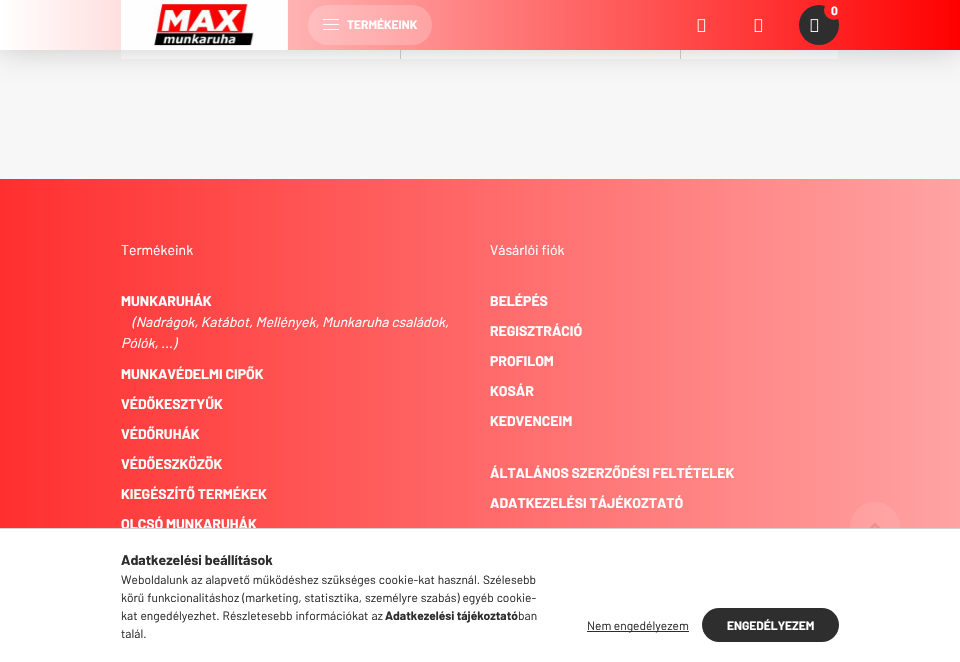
static SkFont makeFont(const char* family, int weight, float size, bool italic = false) {
  SkFontStyle style(weight, SkFontStyle::kNormal_Width,
    italic ? SkFontStyle::kItalic_Slant : SkFontStyle::kUpright_Slant);
  SkFont result(fontMgr->matchFamilyStyle(family, style), size);
  result.setSubpixel(true);
  return result;
}

static void text(SkCanvas* c, const char* s, float x, float y, const SkFont& font, SkColor color) {
  SkPaint ink(SkColor4f::FromColor(color));
  ink.setAntiAlias(true);
  c->drawString(s, x, y, font, ink);
}

static void spacedText(SkCanvas* c, const char* s, float x, float y, const SkFont& font, const SkPaint& ink, float letter, float word) {
  std::vector<SkGlyphID> glyphs(font.countText(s, strlen(s), SkTextEncoding::kUTF8));
  std::vector<float> xs(glyphs.size());
  font.textToGlyphs(s, strlen(s), SkTextEncoding::kUTF8, glyphs);
  font.getXPos(glyphs, xs, x);
  float extra = 0;
  for (size_t i = 0; i < glyphs.size(); i++) {
    xs[i] += extra;
    extra += letter + word * (glyphs[i] == font.unicharToGlyph(' '));
  }
  c->drawTextBlob(SkTextBlob::MakeFromPosHGlyphs(glyphs, xs, y, font), 0, 0, ink);
}

static void box(SkCanvas* c, float l, float t, float r, float b, SkColor color) {
  SkPaint ink(SkColor4f::FromColor(color));
  ink.setAntiAlias(true);
  c->drawRect(SkRect::MakeLTRB(l, t, r, b), ink);
}

static void roundBox(SkCanvas* c, float l, float t, float r, float b, float radius, SkColor color) {
  SkPaint ink(SkColor4f::FromColor(color));
  ink.setAntiAlias(true);
  c->drawRoundRect(SkRect::MakeLTRB(l, t, r, b), radius, radius, ink);
}

static void picture(SkCanvas* c, const char* path, float l, float t, float r, float b) {
  auto image = SkImages::DeferredFromEncodedData(SkData::MakeFromFileName(path));
  c->drawImageRect(image, SkRect::MakeLTRB(l, t, r, b), SkSamplingOptions());
}

void draw(SkCanvas* c) {
  SkPaint paint;
  paint.setAntiAlias(true);
  c->clear(0xfff7f7f7);
  box(c, 121, 50, 838, 59, 0xffffffff);
  box(c, 400, 50, 401, 59, 0xffd1d1d1);
  box(c, 680, 50, 681, 59, 0xffd1d1d1);
  paint.setColor(0x33000000);
  paint.setMaskFilter(SkMaskFilter::MakeBlur(kNormal_SkBlurStyle, 15));
  c->drawRect(SkRect::MakeLTRB(0, 0, 960, 50), paint);
  paint.setMaskFilter(nullptr);
  {
    const SkColor colors[] = {0xffffffff, 0xffff0000};
    const float stops[] = {0, 1};
    const SkPoint ends[] = {{0, 331}, {960, 331}};
    paint.setShader(SkGradientShader::MakeLinear(ends, colors, stops, 2, SkTileMode::kClamp));
    paint.setAlpha(255);
  }
  c->drawRect(SkRect::MakeLTRB(0, 0, 960, 50), paint);
  paint.setShader(nullptr);
  paint.setColor(0xff2e2e2e);
  c->drawCircle(819, 25, 20, paint);
  {
    const SkColor colors[] = {0xffffffff, 0xffff0000};
    const float stops[] = {0, 1};
    const SkPoint ends[] = {{0, 331}, {960, 331}};
    paint.setShader(SkGradientShader::MakeLinear(ends, colors, stops, 2, SkTileMode::kClamp));
    paint.setAlpha(255);
  }
  c->drawCircle(834, 10, 10, paint);
  SkFont face1 = makeFont("Barlow", 700, 12);
  text(c, "0", 831, 15, face1, 0xffffffff);
  picture(c, "img_01.png", 810, 19, 819, 32);
  picture(c, "img_02.png", 697, 19, 706, 32);
  picture(c, "img_03.png", 754, 19, 763, 32);
  picture(c, "img_04.png", 121, 0, 288, 50);
  roundBox(c, 308, 5, 432, 45, 20, 0x33ffffff);
  box(c, 323, 19, 339, 20, 0xffffffff);
  box(c, 323, 24, 339, 25, 0xffffffff);
  box(c, 323, 29, 339, 30, 0xffffffff);
  text(c, "TERMÉKEINK", 347, 29, face1, 0xffffffff);
  {
    const SkColor colors[] = {0xffff2f2f, 0xffffa3a3};
    const float stops[] = {0, 1};
    const SkPoint ends[] = {{0, 331}, {960, 331}};
    paint.setShader(SkGradientShader::MakeLinear(ends, colors, stops, 2, SkTileMode::kClamp));
    paint.setAlpha(255);
  }
  c->drawRect(SkRect::MakeLTRB(0, 179, 960, 528), paint);
  SkFont face2 = makeFont("Barlow", 400, 14);
  text(c, "Termékeink", 121, 255, face2, 0xffffffff);
  SkFont face3 = makeFont("Barlow", 700, 14);
  text(c, "MUNKARUHÁK", 121, 306, face3, 0xffffffff);
  SkFont face4 = makeFont("Barlow", 400, 14, true);
  text(c, "(Nadrágok, Katábot, Mellények, Munkaruha családok,", 132, 327, face4, 0xffffffff);
  text(c, "Pólók, ...)", 121, 348, face4, 0xffffffff);
  text(c, "MUNKAVÉDELMI CIPŐK", 121, 379, face3, 0xffffffff);
  text(c, "VÉDŐKESZTYŰK", 121, 409, face3, 0xffffffff);
  text(c, "VÉDŐRUHÁK", 121, 439, face3, 0xffffffff);
  text(c, "VÉDŐESZKÖZÖK", 121, 469, face3, 0xffffffff);
  text(c, "KIEGÉSZÍTŐ TERMÉKEK", 121, 499, face3, 0xffffffff);
  text(c, "OLCSÓ MUNKARUHÁK", 121, 529, face3, 0xffffffff);
  text(c, "Vásárlói fiók", 490, 255, face2, 0xffffffff);
  text(c, "BELÉPÉS", 490, 306, face3, 0xffffffff);
  text(c, "REGISZTRÁCIÓ", 490, 336, face3, 0xffffffff);
  text(c, "PROFILOM", 490, 366, face3, 0xffffffff);
  text(c, "KOSÁR", 490, 396, face3, 0xffffffff);
  text(c, "KEDVENCEIM", 490, 426, face3, 0xffffffff);
  text(c, "ÁLTALÁNOS SZERZŐDÉSI FELTÉTELEK", 490, 478, face3, 0xffffffff);
  text(c, "ADATKEZELÉSI TÁJÉKOZTATÓ", 490, 508, face3, 0xffffffff);
  paint.setShader(nullptr);
  paint.setColor(0x17ffffff);
  c->drawCircle(875, 527, 25, paint);
  paint.setColor(0xffed9090);
  c->drawPath(SkPathBuilder().moveTo(881.5f, 533).lineTo(873, 524.5f).lineTo(875, 522.5f).lineTo(883.5f, 531).close().detach(), paint);
  paint.setColor(0xffed8f8f);
  c->drawPath(SkPathBuilder().moveTo(866.5f, 531).lineTo(875, 522.5f).lineTo(877, 524.5f).lineTo(868.5f, 533).close().detach(), paint);
  box(c, 0, 529, 960, 662, 0xffffffff);
  box(c, 0, 528, 960, 529, 0xffd1d1d1);
  text(c, "Adatkezelési beállítások", 121, 565, face3, 0xff2e2e2e);
  SkFont face5 = makeFont("Barlow", 400, 12);
  paint.setColor(0xff2e2e2e);
  spacedText(c, "Weboldalunk az alapvető működéshez szükséges cookie-kat használ. Szélesebb", 121, 584, face5, paint, 0, 0.5f);
  spacedText(c, "körű funkcionalitáshoz (marketing, statisztika, személyre szabás) egyéb cookie-", 121, 602, face5, paint, 0, 0.5f);
  spacedText(c, "kat engedélyezhet. Részletesebb információkat az", 121, 620, face5, paint, 0, 0.5f);
  text(c, "Adatkezelési tájékoztató", 385, 620, face1, 0xff2e2e2e);
  text(c, "ban", 518, 620, face5, 0xff2e2e2e);
  text(c, "talál.", 121, 638, face5, 0xff2e2e2e);
  box(c, 587, 631, 689, 632, 0xff2e2e2e);
  text(c, "Nem engedélyezem", 587, 630, face5, 0xff2e2e2e);
  {
    const SkColor colors[] = {0xff2e2e2e, 0xffff5d4e};
    const float stops[] = {0.33f, 0.67f};
    const SkPoint ends[] = {{702, 625}, {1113, 625}};
    paint.setShader(SkGradientShader::MakeLinear(ends, colors, stops, 2, SkTileMode::kClamp));
    paint.setAlpha(255);
  }
  c->drawRoundRect(SkRect::MakeLTRB(702, 608, 839, 642), 17, 17, paint);
  text(c, "ENGEDÉLYEZEM", 727, 630, face1, 0xffffffff);
}
